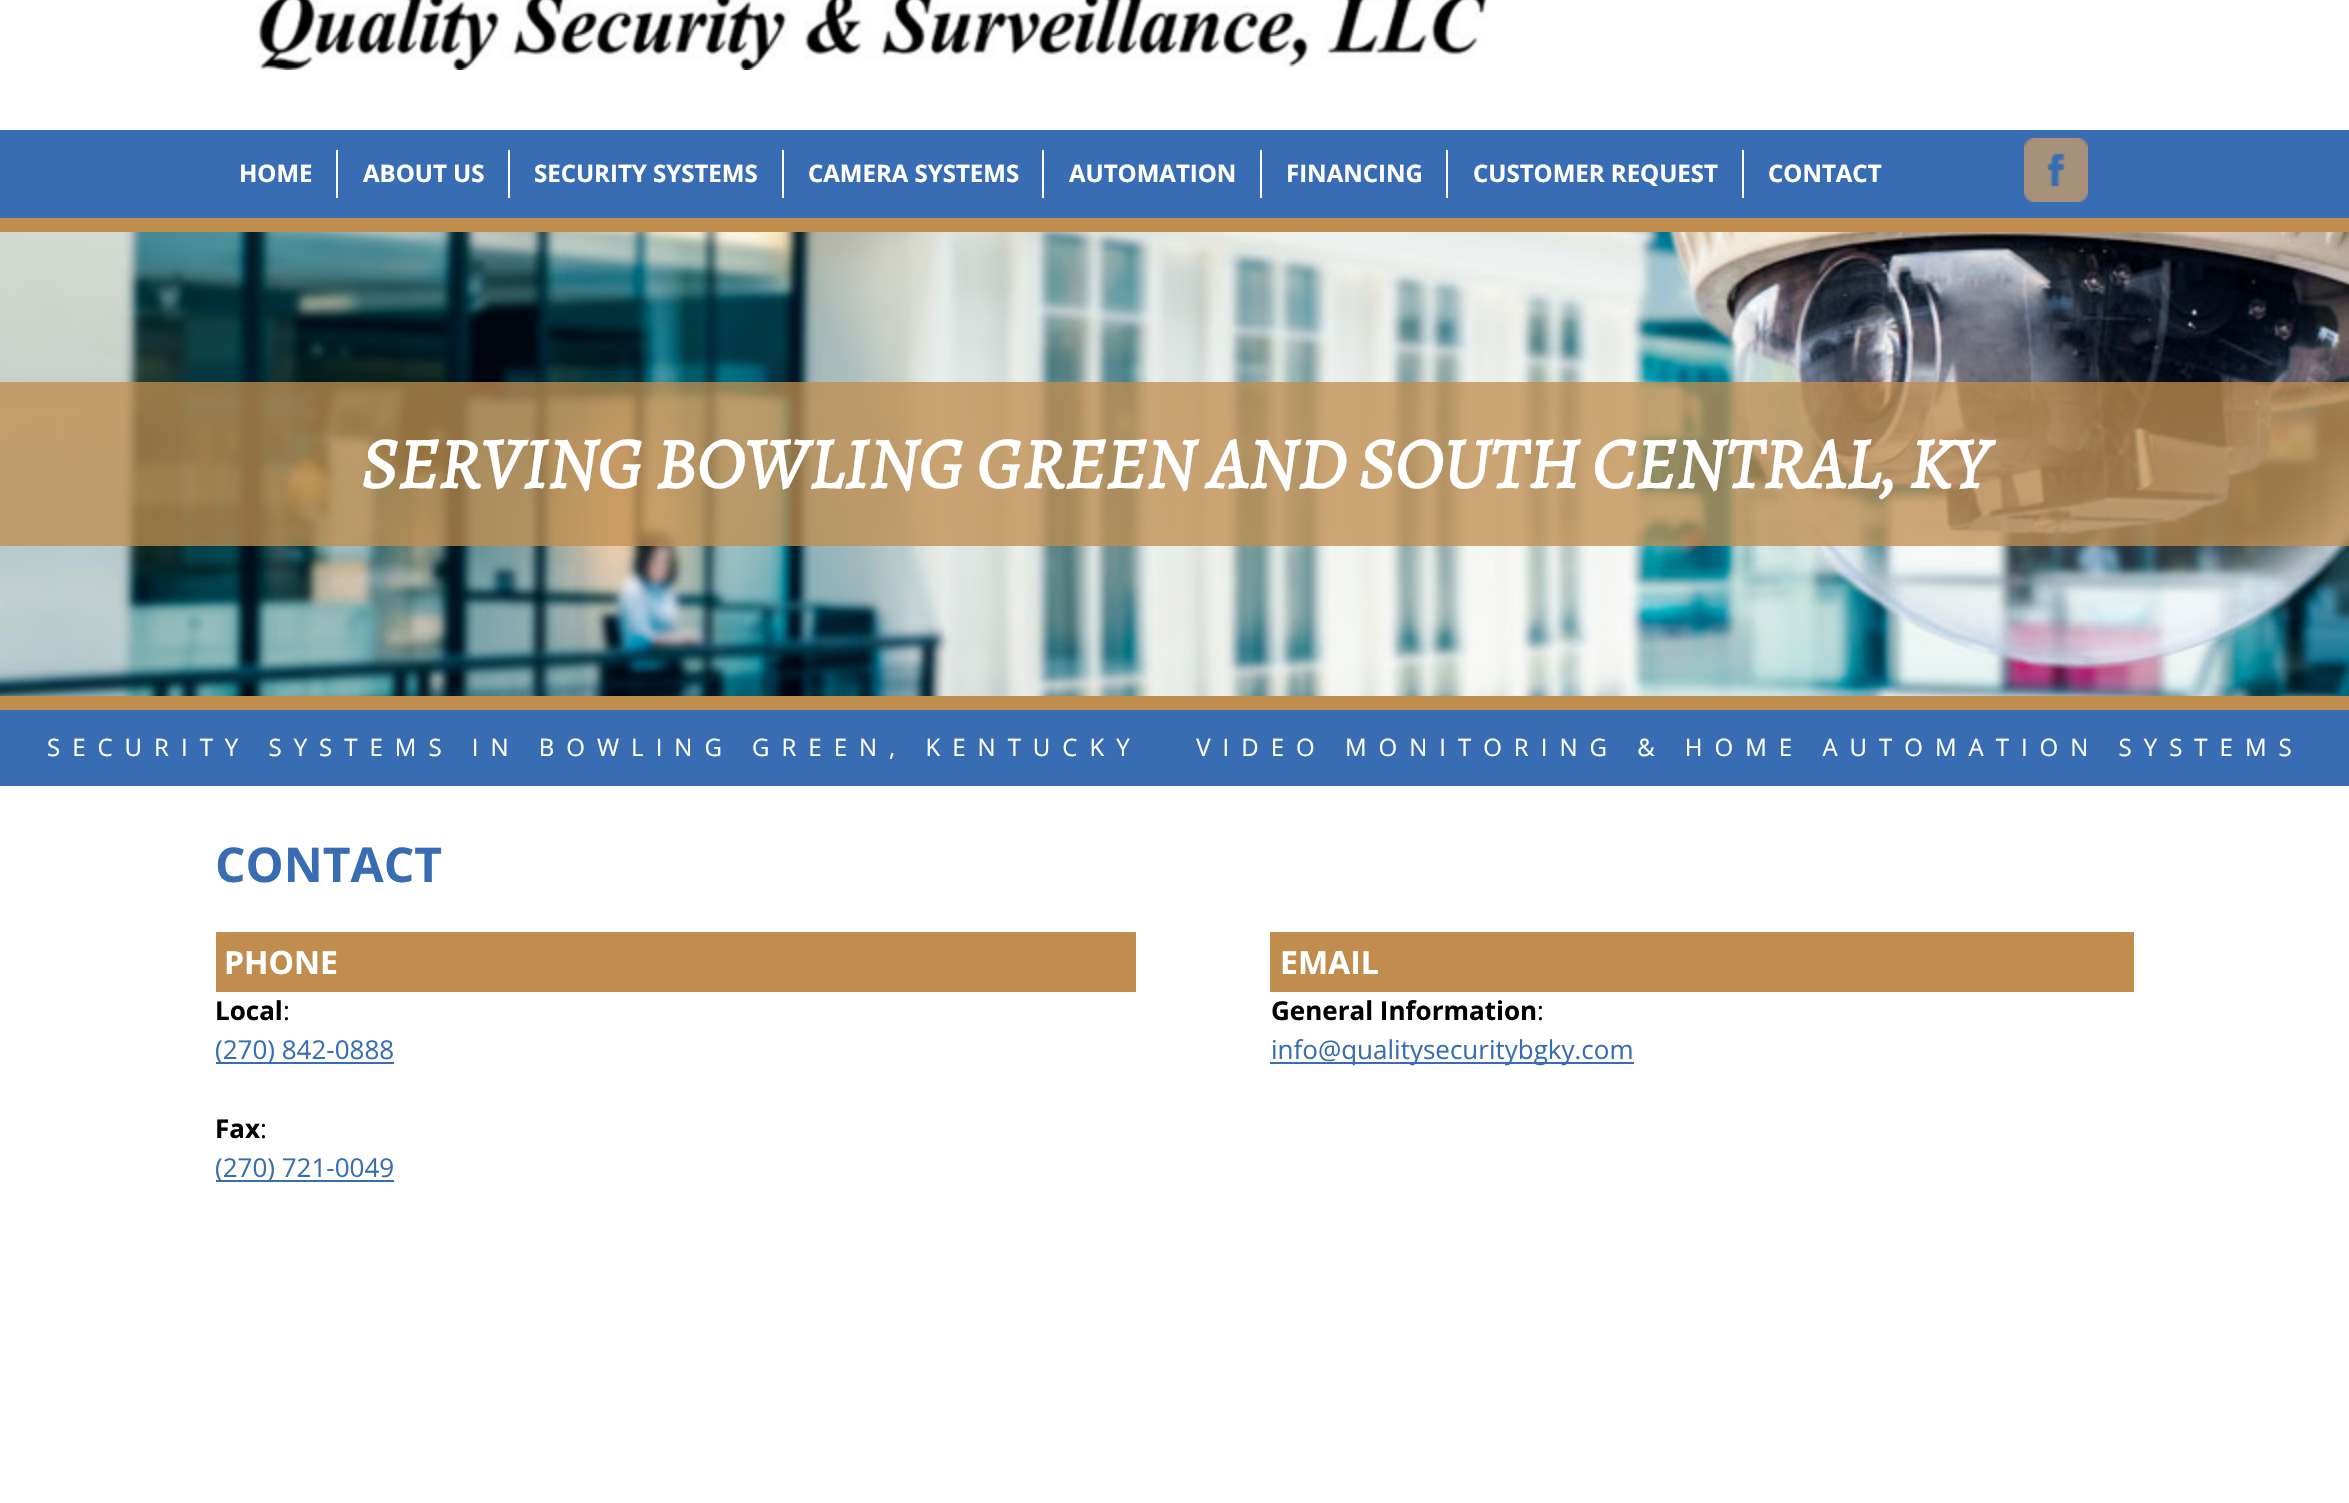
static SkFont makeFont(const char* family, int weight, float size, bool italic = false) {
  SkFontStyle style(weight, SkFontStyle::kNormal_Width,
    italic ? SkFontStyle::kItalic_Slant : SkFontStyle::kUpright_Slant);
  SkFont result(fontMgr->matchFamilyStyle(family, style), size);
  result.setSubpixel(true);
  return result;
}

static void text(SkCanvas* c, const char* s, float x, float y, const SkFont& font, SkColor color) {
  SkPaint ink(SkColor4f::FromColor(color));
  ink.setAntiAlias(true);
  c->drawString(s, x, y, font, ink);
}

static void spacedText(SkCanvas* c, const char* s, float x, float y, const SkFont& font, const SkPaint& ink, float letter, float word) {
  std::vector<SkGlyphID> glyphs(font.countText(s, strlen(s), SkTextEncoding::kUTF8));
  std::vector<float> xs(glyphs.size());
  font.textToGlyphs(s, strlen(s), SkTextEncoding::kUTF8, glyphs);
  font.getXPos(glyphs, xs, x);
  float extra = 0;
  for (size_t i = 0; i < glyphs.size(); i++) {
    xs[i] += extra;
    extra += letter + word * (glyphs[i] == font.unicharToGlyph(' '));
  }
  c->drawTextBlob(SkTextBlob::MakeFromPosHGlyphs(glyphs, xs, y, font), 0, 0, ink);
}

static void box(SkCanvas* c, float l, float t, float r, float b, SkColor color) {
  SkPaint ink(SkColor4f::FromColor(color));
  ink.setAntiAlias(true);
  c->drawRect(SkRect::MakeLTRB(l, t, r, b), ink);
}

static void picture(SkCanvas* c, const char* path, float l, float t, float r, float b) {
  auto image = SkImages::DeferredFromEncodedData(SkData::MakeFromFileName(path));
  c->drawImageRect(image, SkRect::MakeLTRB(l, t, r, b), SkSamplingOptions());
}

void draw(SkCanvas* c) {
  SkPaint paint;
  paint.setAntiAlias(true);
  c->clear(0xffffffff);
  picture(c, "img_01.png", 0, 232, 2349, 696);
  picture(c, "img_02.png", 256, 0, 1488, 70);
  box(c, 0, 130, 2349, 218, 0xff386db3);
  box(c, 0, 218, 2349, 232, 0xffc08d4e);
  box(c, 336, 150, 338, 198, 0xffffffff);
  SkFont face1 = makeFont("Open Sans", 700, 24);
  text(c, "HOME", 239, 182, face1, 0xffffffff);
  box(c, 508, 150, 510, 198, 0xffffffff);
  text(c, "ABOUT US", 363, 182, face1, 0xffffffff);
  box(c, 782, 150, 784, 198, 0xffffffff);
  text(c, "SECURITY SYSTEMS", 534, 182, face1, 0xffffffff);
  box(c, 1042, 150, 1044, 198, 0xffffffff);
  text(c, "CAMERA SYSTEMS", 808, 182, face1, 0xffffffff);
  box(c, 1260, 150, 1262, 198, 0xffffffff);
  text(c, "AUTOMATION", 1069, 182, face1, 0xffffffff);
  box(c, 1446, 150, 1448, 198, 0xffffffff);
  text(c, "FINANCING", 1286, 182, face1, 0xffffffff);
  box(c, 1742, 150, 1744, 198, 0xffffffff);
  text(c, "CUSTOMER REQUEST", 1473, 182, face1, 0xffffffff);
  text(c, "CONTACT", 1768, 182, face1, 0xffffffff);
  picture(c, "img_03.png", 2024, 138, 2088, 202);
  box(c, 0, 382, 2349, 546, 0xc2c08d4e);
  SkFont face2 = makeFont("Alegreya", 700, 72, true);
  text(c, "SERVING BOWLING GREEN AND SOUTH CENTRAL, KY", 361, 488, face2, 0xffffffff);
  box(c, 0, 696, 2349, 710, 0xffc08d4e);
  box(c, 0, 710, 2349, 786, 0xff386db3);
  SkFont face3 = makeFont("Open Sans", 400, 24);
  paint.setColor(0xffffffff);
  spacedText(c, "SECURITY SYSTEMS IN BOWLING GREEN, KENTUCKY   VIDEO MONITORING & HOME AUTOMATION SYSTEMS", 47, 756, face3, paint, 12, 0);
  SkFont face4 = makeFont("Open Sans", 700, 48);
  text(c, "CONTACT", 215, 882, face4, 0xff386db3);
  box(c, 216, 932, 1136, 992, 0xffc08d4e);
  SkFont face5 = makeFont("Open Sans", 700, 32);
  text(c, "PHONE", 224, 974, face5, 0xffffffff);
  SkFont face6 = makeFont("Open Sans", 700, 26);
  text(c, "Local", 215, 1020, face6, 0xff000000);
  SkFont face7 = makeFont("Open Sans", 400, 26);
  text(c, ":", 283, 1020, face7, 0xff000000);
  box(c, 216, 1062, 394, 1064, 0xff386db3);
  text(c, "(270) 842-0888", 215, 1059, face7, 0xff386db3);
  text(c, "Fax", 215, 1138, face6, 0xff000000);
  text(c, ":", 260, 1138, face7, 0xff000000);
  box(c, 216, 1180, 394, 1182, 0xff386db3);
  text(c, "(270) 721-0049", 215, 1177, face7, 0xff386db3);
  box(c, 1270, 932, 2134, 992, 0xffc08d4e);
  text(c, "EMAIL", 1280, 974, face5, 0xffffffff);
  text(c, "General Information", 1271, 1020, face6, 0xff000000);
  text(c, ":", 1537, 1020, face7, 0xff000000);
  box(c, 1270, 1062, 1634, 1064, 0xff386db3);
  text(c, "info@qualitysecuritybgky.com", 1271, 1059, face7, 0xff386db3);
}
